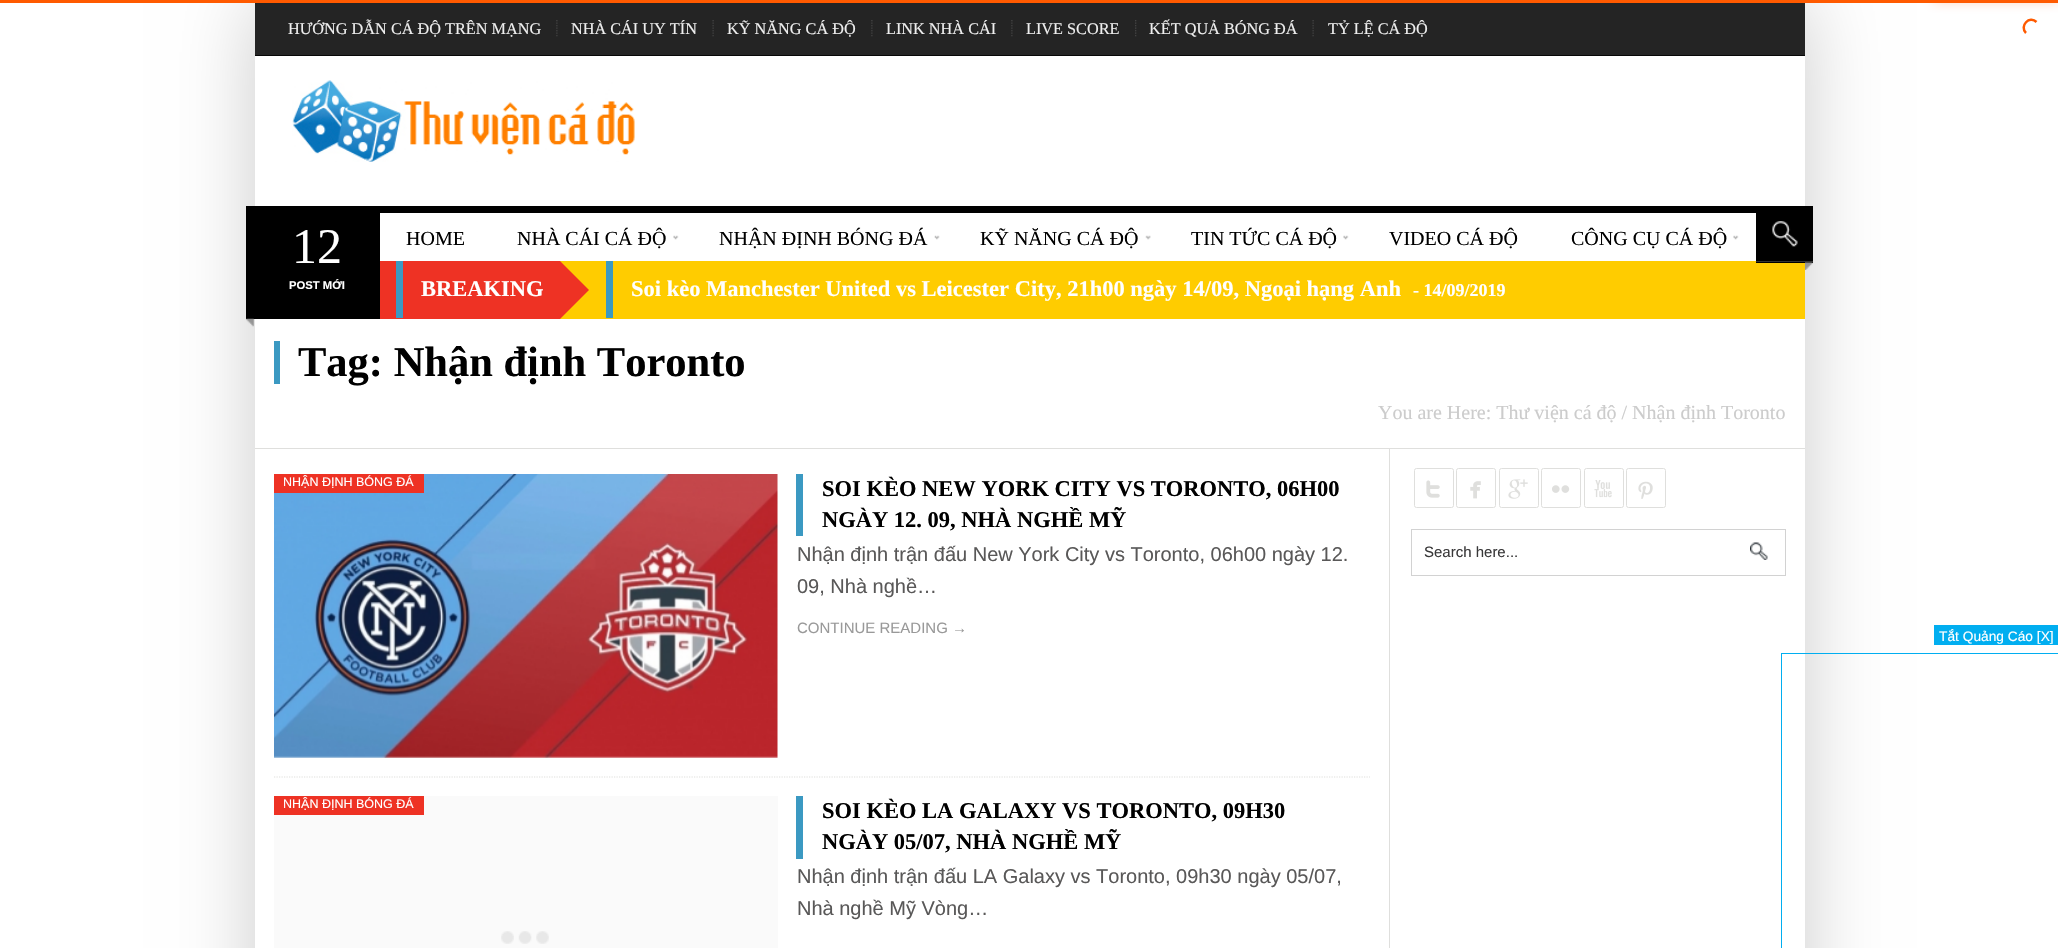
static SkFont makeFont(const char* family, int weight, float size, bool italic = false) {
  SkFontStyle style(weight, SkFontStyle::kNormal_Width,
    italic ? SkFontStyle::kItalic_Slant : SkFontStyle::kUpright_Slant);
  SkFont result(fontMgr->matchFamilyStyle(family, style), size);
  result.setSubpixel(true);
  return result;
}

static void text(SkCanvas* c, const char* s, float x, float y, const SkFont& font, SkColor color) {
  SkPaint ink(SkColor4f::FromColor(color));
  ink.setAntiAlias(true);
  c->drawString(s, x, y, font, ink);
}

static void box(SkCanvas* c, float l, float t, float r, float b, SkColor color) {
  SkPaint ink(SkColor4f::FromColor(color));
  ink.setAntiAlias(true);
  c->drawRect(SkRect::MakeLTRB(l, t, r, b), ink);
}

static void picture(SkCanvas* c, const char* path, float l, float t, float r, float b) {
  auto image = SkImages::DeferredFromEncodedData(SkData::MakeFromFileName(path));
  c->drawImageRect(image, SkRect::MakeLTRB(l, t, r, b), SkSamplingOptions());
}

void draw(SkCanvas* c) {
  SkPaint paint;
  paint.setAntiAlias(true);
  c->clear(0xffffffff);
  c->save();
  c->clipPath(SkPathBuilder(SkPathFillType::kEvenOdd).moveTo(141, 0).lineTo(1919, 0).lineTo(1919, 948).lineTo(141, 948).close().moveTo(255, 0).lineTo(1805, 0).lineTo(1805, 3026).lineTo(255, 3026).close().detach(), true);
  paint.setColor(0x33000000);
  paint.setMaskFilter(SkMaskFilter::MakeBlur(kNormal_SkBlurStyle, 37.5f));
  c->drawRect(SkRect::MakeLTRB(255, 0, 1805, 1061), paint);
  paint.setMaskFilter(nullptr);
  c->restore();
  box(c, 0, 0, 2058, 3, 0xffff5a00);
  paint.setColor(0xffff5a00);
  paint.setMaskFilter(SkMaskFilter::MakeBlur(kNormal_SkBlurStyle, 6.5f));
  c->drawRect(SkRect::MakeLTRB(1934, -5, 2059, -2), paint);
  paint.setMaskFilter(nullptr);
  paint.setStyle(SkPaint::kStroke_Style);
  paint.setStrokeWidth(2.5f);
  c->drawPath(SkPathBuilder().moveTo(2026, 33).cubicTo(2019, 26, 2029.5f, 15, 2036.5f, 22).detach(), paint);
  box(c, 255, 3, 1805, 55, 0xff242424);
  box(c, 255, 55, 1805, 56, 0xff070707);
  SkFont face1 = makeFont("Liberation Serif", 400, 16.25f);
  text(c, "HƯỚNG DẪN CÁ ĐỘ TRÊN MẠNG", 288, 34, face1, 0xffeeeeee);
  picture(c, "img_01.png", 556, 20, 558, 37);
  text(c, "NHÀ CÁI UY TÍN", 571, 34, face1, 0xffeeeeee);
  picture(c, "img_02.png", 712, 20, 714, 37);
  text(c, "KỸ NĂNG CÁ ĐỘ", 727, 34, face1, 0xffeeeeee);
  picture(c, "img_01.png", 871, 20, 873, 37);
  text(c, "LINK NHÀ CÁI", 886, 34, face1, 0xffeeeeee);
  picture(c, "img_01.png", 1011, 20, 1013, 37);
  text(c, "LIVE SCORE", 1026, 34, face1, 0xffeeeeee);
  picture(c, "img_03.png", 1135, 20, 1137, 37);
  text(c, "KẾT QUẢ BÓNG ĐÁ", 1149, 34, face1, 0xffeeeeee);
  picture(c, "img_02.png", 1312, 20, 1314, 37);
  text(c, "TỶ LỆ CÁ ĐỘ", 1328, 34, face1, 0xffeeeeee);
  picture(c, "img_04.png", 292, 80, 635, 162);
  box(c, 246, 206, 380, 319, 0xff000000);
  SkFont face2 = makeFont("Liberation Serif", 400, 50);
  text(c, "12", 292, 263, face2, 0xffffffff);
  SkFont face3 = makeFont("Liberation Sans", 700, 11.25f);
  text(c, "POST MỚI", 289, 289, face3, 0xffffffff);
  picture(c, "img_05.png", 246, 318, 254, 327);
  box(c, 380, 206, 1758, 213, 0xff000000);
  SkFont face4 = makeFont("Liberation Serif", 400, 20);
  text(c, "HOME", 406, 245, face4, 0xff000000);
  text(c, "NHÀ CÁI CÁ ĐỘ", 517, 245, face4, 0xff000000);
  picture(c, "img_06.png", 673, 235, 679, 240);
  text(c, "NHẬN ĐỊNH BÓNG ĐÁ", 719, 245, face4, 0xff000000);
  picture(c, "img_07.png", 934, 235, 940, 240);
  text(c, "KỸ NĂNG CÁ ĐỘ", 980, 245, face4, 0xff000000);
  picture(c, "img_08.png", 1145, 235, 1151, 240);
  text(c, "TIN TỨC CÁ ĐỘ", 1191, 245, face4, 0xff000000);
  picture(c, "img_06.png", 1343, 235, 1349, 240);
  text(c, "VIDEO CÁ ĐỘ", 1389, 245, face4, 0xff000000);
  text(c, "CÔNG CỤ CÁ ĐỘ", 1571, 245, face4, 0xff000000);
  picture(c, "img_06.png", 1733, 235, 1739, 240);
  box(c, 560, 261, 1805, 319, 0xffffcc00);
  box(c, 1756, 206, 1813, 263, 0xff000000);
  picture(c, "img_09.png", 1772, 221, 1798, 247);
  box(c, 1756, 261, 1813, 262, 0xff333333);
  picture(c, "img_10.png", 1805, 262, 1813, 270);
  box(c, 380, 261, 560, 319, 0xffee3224);
  box(c, 396, 261, 403, 318, 0xff3b99c2);
  SkFont face5 = makeFont("Liberation Serif", 700, 22.5f);
  text(c, "BREAKING", 421, 296, face5, 0xffffffff);
  paint.setStyle(SkPaint::kFill_Style);
  paint.setColor(0xffee3224);
  c->drawPath(SkPathBuilder().moveTo(560, 319).lineTo(560, 261).lineTo(589, 290).close().detach(), paint);
  box(c, 606, 261, 613, 318, 0xff3b99c2);
  text(c, "Soi kèo Manchester United vs Leicester City, 21h00 ngày 14/09, Ngoại hạng Anh", 631, 296, face5, 0xffffffff);
  SkFont face6 = makeFont("Liberation Serif", 700, 18);
  text(c, "- 14/09/2019", 1413, 296, face6, 0xffffffff);
  box(c, 255, 448, 1805, 449, 0xffdfdfdd);
  box(c, 274, 341, 280, 384, 0xff3b99c2);
  SkFont face7 = makeFont("Liberation Serif", 700, 42.5f);
  text(c, "Tag: Nhận định Toronto", 298, 376, face7, 0xff000000);
  text(c, "You are Here: Thư viện cá độ / Nhận định Toronto", 1378, 419, face4, 0xffcccccc);
  box(c, 1389, 449, 1390, 948, 0xffdfdfdd);
  box(c, 274, 474, 778, 758, 0xfffafafa);
  picture(c, "img_11.png", 274, 474, 778, 758);
  box(c, 274, 474, 424, 493, 0xffee3224);
  SkFont face8 = makeFont("Liberation Sans", 400, 12.5f);
  text(c, "NHẬN ĐỊNH BÓNG ĐÁ", 283, 486, face8, 0xffffffff);
  box(c, 796, 474, 803, 536, 0xff3b99c2);
  text(c, "SOI KÈO NEW YORK CITY VS TORONTO, 06H00", 822, 496, face5, 0xff000000);
  text(c, "NGÀY 12. 09, NHÀ NGHỀ MỸ", 822, 527, face5, 0xff000000);
  SkFont face9 = makeFont("Liberation Sans", 400, 20);
  text(c, "Nhận định trận đấu New York City vs Toronto, 06h00 ngày 12.", 797, 561, face9, 0xff595858);
  text(c, "09, Nhà nghề…", 797, 593, face9, 0xff595858);
  SkFont face10 = makeFont("Liberation Sans", 400, 15);
  text(c, "CONTINUE READING →", 797, 633, face10, 0xff999999);
  paint.setStyle(SkPaint::kStroke_Style);
  paint.setStrokeWidth(1.2f);
  paint.setColor(0xffdfdfdd);
  paint.setPathEffect(SkDashPathEffect::Make({{1.25f, 1.25f}}, 0));
  c->drawPath(SkPathBuilder().moveTo(274, 777).lineTo(1370, 777).detach(), paint);
  paint.setPathEffect(nullptr);
  box(c, 274, 796, 778, 948, 0xfffafafa);
  picture(c, "img_12.png", 501, 931, 549, 944);
  box(c, 274, 796, 424, 815, 0xffee3224);
  text(c, "NHẬN ĐỊNH BÓNG ĐÁ", 283, 808, face8, 0xffffffff);
  box(c, 796, 796, 803, 859, 0xff3b99c2);
  text(c, "SOI KÈO LA GALAXY VS TORONTO, 09H30", 822, 818, face5, 0xff000000);
  text(c, "NGÀY 05/07, NHÀ NGHỀ MỸ", 822, 849, face5, 0xff000000);
  text(c, "Nhận định trận đấu LA Galaxy vs Toronto, 09h30 ngày 05/07,", 797, 883, face9, 0xff595858);
  text(c, "Nhà nghề Mỹ Vòng…", 797, 915, face9, 0xff595858);
  paint.setStrokeWidth(1);
  c->drawRoundRect(SkRect::MakeLTRB(1414.5f, 468.5f, 1453.5f, 507.5f), 2, 2, paint);
  picture(c, "img_13.png", 1426, 480, 1440, 498);
  c->drawRoundRect(SkRect::MakeLTRB(1456.5f, 468.5f, 1495.5f, 507.5f), 2, 2, paint);
  picture(c, "img_14.png", 1470, 481, 1481, 499);
  c->drawRoundRect(SkRect::MakeLTRB(1499.5f, 468.5f, 1538.5f, 507.5f), 2, 2, paint);
  picture(c, "img_15.png", 1508, 479, 1528, 499);
  c->drawRoundRect(SkRect::MakeLTRB(1541.5f, 468.5f, 1580.5f, 507.5f), 2, 2, paint);
  picture(c, "img_16.png", 1552, 485, 1570, 493);
  c->drawRoundRect(SkRect::MakeLTRB(1584.5f, 468.5f, 1623.5f, 507.5f), 2, 2, paint);
  picture(c, "img_17.png", 1594, 480, 1612, 498);
  c->drawRoundRect(SkRect::MakeLTRB(1626.5f, 468.5f, 1665.5f, 507.5f), 2, 2, paint);
  picture(c, "img_18.png", 1638, 481, 1653, 499);
  picture(c, "img_19.png", 1750, 542, 1768, 560);
  paint.setColor(0xffd2d2d2);
  c->drawRect(SkRect::MakeLTRB(1411.5f, 529.5f, 1785.5f, 575.5f), paint);
  text(c, "Search here...", 1424, 557, face10, 0xff393839);
  box(c, 1934, 625, 2058, 645, 0xff01aef0);
  SkFont face11 = makeFont("Liberation Sans", 400, 13.75f);
  text(c, "Tắt Quảng Cáo [X]", 1939, 641, face11, 0xffffffff);
  paint.setColor(0xff01aef0);
  c->drawRect(SkRect::MakeLTRB(1781.5f, 653.5f, 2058.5f, 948.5f), paint);
}
